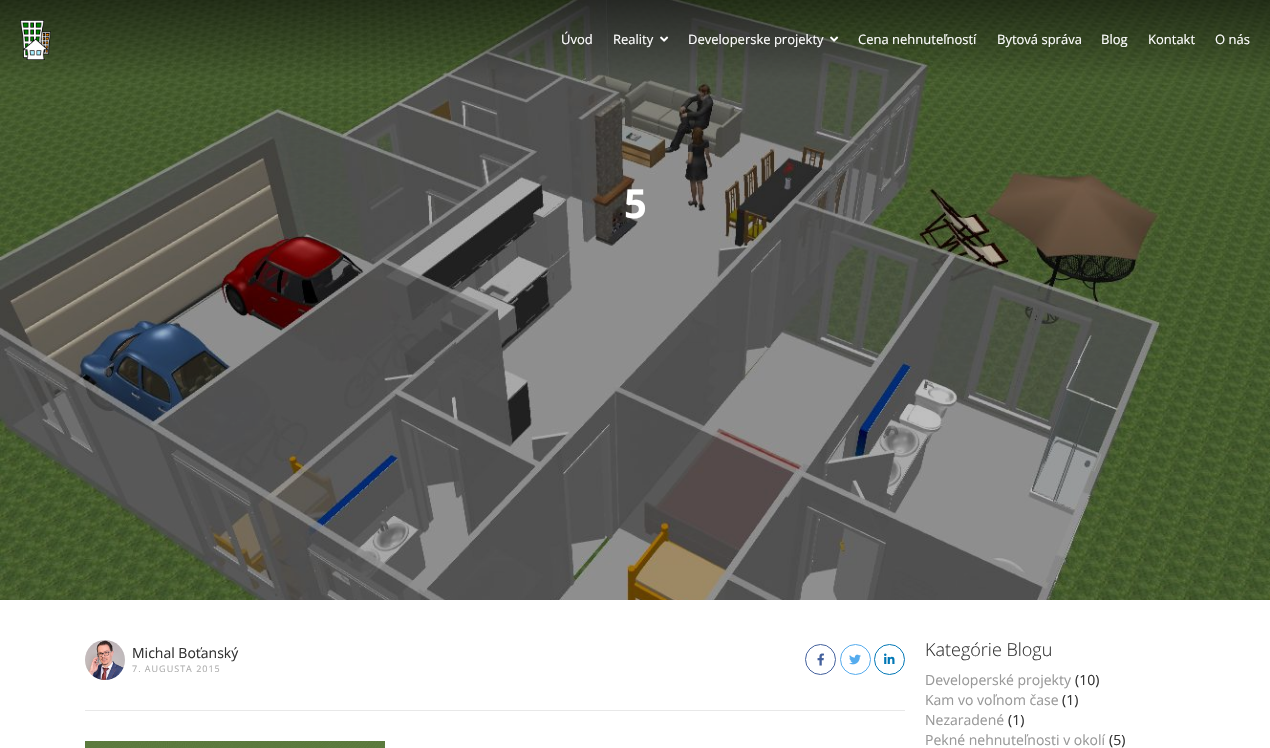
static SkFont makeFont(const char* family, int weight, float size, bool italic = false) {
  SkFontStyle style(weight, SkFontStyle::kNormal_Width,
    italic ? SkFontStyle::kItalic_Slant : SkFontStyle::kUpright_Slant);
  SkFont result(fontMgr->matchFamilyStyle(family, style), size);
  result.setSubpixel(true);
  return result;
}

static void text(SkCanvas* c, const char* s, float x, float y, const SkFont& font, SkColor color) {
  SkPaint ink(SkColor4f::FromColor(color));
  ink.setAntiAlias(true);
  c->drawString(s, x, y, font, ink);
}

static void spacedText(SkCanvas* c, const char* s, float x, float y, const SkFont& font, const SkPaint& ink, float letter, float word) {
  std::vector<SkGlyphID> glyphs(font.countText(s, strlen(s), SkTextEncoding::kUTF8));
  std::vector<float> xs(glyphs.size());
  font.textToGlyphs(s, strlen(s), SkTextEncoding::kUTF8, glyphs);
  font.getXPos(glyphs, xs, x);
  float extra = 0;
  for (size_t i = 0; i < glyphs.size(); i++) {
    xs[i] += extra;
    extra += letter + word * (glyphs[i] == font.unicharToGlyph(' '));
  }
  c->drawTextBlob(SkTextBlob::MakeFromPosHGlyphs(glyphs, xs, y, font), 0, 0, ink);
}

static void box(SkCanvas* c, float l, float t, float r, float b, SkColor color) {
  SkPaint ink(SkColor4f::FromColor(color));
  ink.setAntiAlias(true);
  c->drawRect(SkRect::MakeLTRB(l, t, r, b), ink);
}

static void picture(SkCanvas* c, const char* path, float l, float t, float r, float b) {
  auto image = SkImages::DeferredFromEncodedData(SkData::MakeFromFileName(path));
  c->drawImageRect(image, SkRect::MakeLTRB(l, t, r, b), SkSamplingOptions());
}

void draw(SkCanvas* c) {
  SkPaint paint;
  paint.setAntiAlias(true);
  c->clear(0xffffffff);
  picture(c, "img_04.png", 0, 0, 1270, 600);
  picture(c, "img_01.png", 20, 20, 51, 60);
  SkFont face1 = makeFont("Open Sans", 400, 13);
  text(c, "Úvod", 561, 44, face1, 0xffffffff);
  text(c, "Reality", 613, 44, face1, 0xffffffff);
  picture(c, "img_02.png", 660, 36, 669, 42);
  text(c, "Developerske projekty", 688, 44, face1, 0xffffffff);
  picture(c, "img_03.png", 830, 36, 839, 42);
  text(c, "Cena nehnuteľností", 858, 44, face1, 0xffffffff);
  text(c, "Bytová správa", 997, 44, face1, 0xffffffff);
  text(c, "Blog", 1101, 44, face1, 0xffffffff);
  text(c, "Kontakt", 1148, 44, face1, 0xffffffff);
  text(c, "O nás", 1215, 44, face1, 0xffffffff);
  SkFont face2 = makeFont("Open Sans", 700, 40);
  text(c, "5", 624, 218, face2, 0xffffffff);
  box(c, 85, 710, 905, 711, 0xffe8e8e8);
  picture(c, "img_05.png", 85, 640, 125, 680);
  SkFont face3 = makeFont("Open Sans", 400, 14);
  text(c, "Michal Boťanský", 132, 658, face3, 0xff333333);
  SkFont face4 = makeFont("Open Sans", 400, 9);
  paint.setColor(0xffadadad);
  spacedText(c, "7. AUGUSTA 2015", 132, 672, face4, paint, 1, 0);
  paint.setStyle(SkPaint::kStroke_Style);
  paint.setStrokeWidth(1);
  paint.setColor(0xff43609c);
  c->drawCircle(820.5f, 659.5f, 15, paint);
  picture(c, "img_06.png", 817, 653, 824, 666);
  paint.setColor(0xff55acee);
  c->drawCircle(855.5f, 659.5f, 15, paint);
  picture(c, "img_07.png", 849, 654, 861, 665);
  paint.setColor(0xff0177b5);
  c->drawCircle(889.5f, 659.5f, 15, paint);
  picture(c, "img_08.png", 884, 653, 895, 664);
  picture(c, "img_09.png", 85, 741, 385, 748);
  SkFont face5 = makeFont("Open Sans", 300, 18);
  text(c, "Kategórie Blogu", 925, 656, face5, 0xff333333);
  text(c, "Developerské projekty", 925, 685, face3, 0xff999999);
  text(c, "(10)", 1075, 685, face3, 0xff333333);
  text(c, "Kam vo voľnom čase", 925, 705, face3, 0xff999999);
  text(c, "(1)", 1062, 705, face3, 0xff333333);
  text(c, "Nezaradené", 925, 725, face3, 0xff999999);
  text(c, "(1)", 1008, 725, face3, 0xff333333);
  text(c, "Pekné nehnuteľnosti v okolí", 925, 745, face3, 0xff999999);
  text(c, "(5)", 1109, 745, face3, 0xff333333);
}
